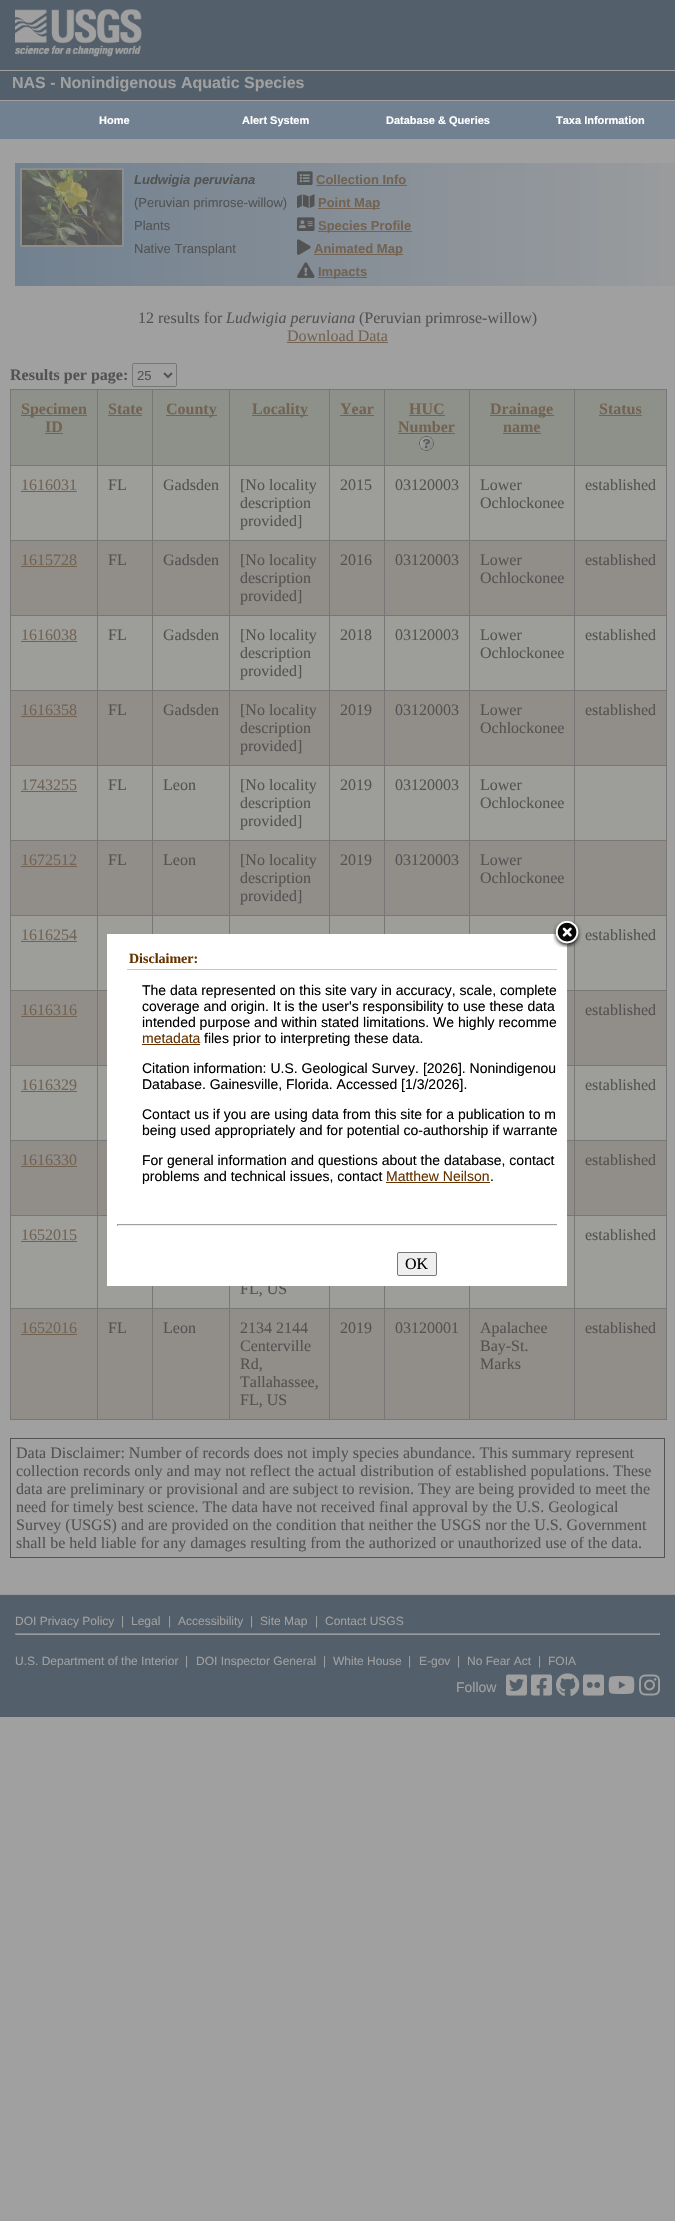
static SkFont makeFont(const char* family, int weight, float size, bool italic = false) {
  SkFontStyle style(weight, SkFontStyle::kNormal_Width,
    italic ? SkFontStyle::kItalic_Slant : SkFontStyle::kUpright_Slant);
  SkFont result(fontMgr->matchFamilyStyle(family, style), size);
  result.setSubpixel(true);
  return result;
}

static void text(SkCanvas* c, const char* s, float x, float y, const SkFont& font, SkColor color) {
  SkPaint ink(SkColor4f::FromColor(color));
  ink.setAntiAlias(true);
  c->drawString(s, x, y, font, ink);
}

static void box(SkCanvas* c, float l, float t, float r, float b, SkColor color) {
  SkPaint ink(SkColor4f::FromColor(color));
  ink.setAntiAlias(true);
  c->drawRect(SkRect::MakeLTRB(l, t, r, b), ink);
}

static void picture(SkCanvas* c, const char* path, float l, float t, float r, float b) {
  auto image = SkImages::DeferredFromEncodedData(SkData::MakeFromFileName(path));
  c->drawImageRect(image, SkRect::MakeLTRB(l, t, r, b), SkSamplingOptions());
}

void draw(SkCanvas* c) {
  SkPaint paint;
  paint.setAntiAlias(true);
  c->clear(0xffa0a0a0);
  box(c, 0, 0, 675, 70, 0xff535f6a);
  picture(c, "img_01.png", 15, 8, 142, 57);
  box(c, 0, 71, 675, 100, 0xff535f6a);
  SkFont face1 = makeFont("Liberation Sans", 700, 16);
  text(c, "NAS - Nonindigenous Aquatic Species", 12, 88, face1, 0xffa0a0a0);
  box(c, 0, 101, 675, 139, 0xff728191);
  SkFont face2 = makeFont("Liberation Sans", 700, 11);
  text(c, "Home", 99, 124, face2, 0xffffffff);
  text(c, "Alert System", 242, 124, face2, 0xffffffff);
  text(c, "Database & Queries", 386, 124, face2, 0xffffffff);
  text(c, "Taxa Information", 556, 124, face2, 0xffffffff);
  picture(c, "img_02.png", 15, 163, 675, 286);
  paint.setStyle(SkPaint::kStroke_Style);
  paint.setStrokeWidth(2);
  paint.setColor(0xff8d8d8d);
  c->drawRect(SkRect::MakeLTRB(21, 169, 123, 246), paint);
  picture(c, "img_03.png", 22, 170, 122, 245);
  SkFont face3 = makeFont("Liberation Sans", 700, 13, true);
  text(c, "Ludwigia peruviana", 134, 184, face3, 0xff535353);
  SkFont face4 = makeFont("Liberation Sans", 400, 13);
  text(c, "(Peruvian primrose-willow)", 134, 207, face4, 0xff535353);
  text(c, "Plants", 134, 230, face4, 0xff535353);
  text(c, "Native Transplant", 134, 253, face4, 0xff535353);
  picture(c, "img_04.png", 297, 171, 313, 185);
  SkFont face5 = makeFont("Liberation Sans", 700, 13);
  text(c, "Collection Info", 316, 184, face5, 0xff726353);
  box(c, 316, 185, 407, 186, 0xff726353);
  picture(c, "img_05.png", 297, 194, 315, 208);
  box(c, 318, 208, 380, 209, 0xff726353);
  text(c, "Point Map", 318, 207, face5, 0xff726353);
  picture(c, "img_06.png", 297, 217, 315, 231);
  box(c, 318, 231, 412, 232, 0xff726353);
  text(c, "Species Profile", 318, 230, face5, 0xff726353);
  picture(c, "img_07.png", 297, 239, 311, 255);
  box(c, 314, 254, 403, 255, 0xff726353);
  text(c, "Animated Map", 314, 253, face5, 0xff726353);
  picture(c, "img_08.png", 297, 262, 315, 278);
  box(c, 318, 277, 367, 278, 0xff726353);
  text(c, "Impacts", 318, 276, face5, 0xff726353);
  SkFont face6 = makeFont("Liberation Serif", 400, 16);
  text(c, "12 results for", 138, 323, face6, 0xff535353);
  SkFont face7 = makeFont("Liberation Serif", 400, 16, true);
  text(c, "Ludwigia peruviana", 226, 323, face7, 0xff535353);
  text(c, "(Peruvian primrose-willow)", 359, 323, face6, 0xff535353);
  text(c, "Download Data", 287, 341, face6, 0xff726353);
  box(c, 287, 342, 388, 343, 0xff726353);
  SkFont face8 = makeFont("Liberation Serif", 700, 16);
  text(c, "Results per page:", 10, 380, face8, 0xff535353);
  paint.setStrokeWidth(1);
  paint.setColor(0xff777777);
  c->drawRoundRect(SkRect::MakeLTRB(132.5f, 363.5f, 176.5f, 386.5f), 1.5f, 1.5f, paint);
  paint.setStrokeWidth(2);
  paint.setColor(0xff535353);
  c->drawPath(SkPathBuilder().moveTo(164, 373).lineTo(168, 377).lineTo(172, 373).detach(), paint);
  text(c, "25", 137, 380, face4, 0xff535353);
  box(c, 11, 466, 666, 1308, 0xff9d9d9a);
  box(c, 10, 389, 667, 390, 0xff777777);
  box(c, 666, 389, 667, 1420, 0xff777777);
  box(c, 10, 1419, 667, 1420, 0xff777777);
  box(c, 10, 389, 11, 1420, 0xff777777);
  box(c, 11, 390, 666, 465, 0xff8e918a);
  box(c, 21, 415, 87, 416, 0xff726353);
  text(c, "Specimen", 21, 414, face8, 0xff726353);
  text(c, "ID", 45, 432, face8, 0xff726353);
  box(c, 45, 433, 63, 434, 0xff726353);
  box(c, 574, 465, 667, 466, 0xff777777);
  box(c, 574, 540, 667, 541, 0xff777777);
  box(c, 11, 541, 666, 615, 0xff918d88);
  box(c, 574, 615, 667, 616, 0xff777777);
  box(c, 574, 690, 667, 691, 0xff777777);
  box(c, 11, 691, 666, 765, 0xff918d88);
  box(c, 574, 765, 667, 766, 0xff777777);
  box(c, 574, 840, 667, 841, 0xff777777);
  box(c, 11, 841, 666, 915, 0xff918d88);
  box(c, 574, 915, 667, 916, 0xff777777);
  box(c, 574, 990, 667, 991, 0xff777777);
  box(c, 11, 991, 666, 1065, 0xff918d88);
  box(c, 574, 1065, 667, 1066, 0xff777777);
  box(c, 574, 1140, 667, 1141, 0xff777777);
  box(c, 11, 1141, 666, 1215, 0xff918d88);
  box(c, 574, 1215, 667, 1216, 0xff777777);
  box(c, 574, 1308, 667, 1309, 0xff777777);
  box(c, 11, 1309, 666, 1419, 0xff918d88);
  box(c, 574, 1308, 575, 1420, 0xff777777);
  box(c, 469, 1308, 575, 1309, 0xff777777);
  box(c, 574, 1215, 575, 1309, 0xff777777);
  box(c, 567, 1215, 575, 1216, 0xff777777);
  box(c, 574, 1140, 575, 1216, 0xff777777);
  box(c, 567, 1140, 575, 1141, 0xff777777);
  box(c, 574, 1065, 575, 1141, 0xff777777);
  box(c, 567, 1065, 575, 1066, 0xff777777);
  box(c, 574, 990, 575, 1066, 0xff777777);
  box(c, 567, 990, 575, 991, 0xff777777);
  box(c, 574, 915, 575, 991, 0xff777777);
  box(c, 469, 915, 575, 916, 0xff777777);
  box(c, 574, 840, 575, 916, 0xff777777);
  box(c, 469, 840, 575, 841, 0xff777777);
  box(c, 574, 765, 575, 841, 0xff777777);
  box(c, 469, 765, 575, 766, 0xff777777);
  box(c, 574, 690, 575, 766, 0xff777777);
  box(c, 469, 690, 575, 691, 0xff777777);
  box(c, 574, 615, 575, 691, 0xff777777);
  box(c, 469, 615, 575, 616, 0xff777777);
  box(c, 574, 540, 575, 616, 0xff777777);
  box(c, 469, 540, 575, 541, 0xff777777);
  box(c, 574, 465, 575, 541, 0xff777777);
  box(c, 469, 465, 575, 466, 0xff777777);
  box(c, 469, 915, 470, 934, 0xff777777);
  box(c, 384, 915, 470, 916, 0xff777777);
  box(c, 469, 840, 470, 916, 0xff777777);
  box(c, 384, 840, 470, 841, 0xff777777);
  box(c, 469, 765, 470, 841, 0xff777777);
  box(c, 384, 765, 470, 766, 0xff777777);
  box(c, 469, 690, 470, 766, 0xff777777);
  box(c, 384, 690, 470, 691, 0xff777777);
  box(c, 469, 615, 470, 691, 0xff777777);
  box(c, 384, 615, 470, 616, 0xff777777);
  box(c, 469, 540, 470, 616, 0xff777777);
  box(c, 384, 540, 470, 541, 0xff777777);
  box(c, 469, 465, 470, 541, 0xff777777);
  box(c, 384, 465, 470, 466, 0xff777777);
  box(c, 384, 915, 385, 934, 0xff777777);
  box(c, 329, 915, 385, 916, 0xff777777);
  box(c, 384, 840, 385, 916, 0xff777777);
  box(c, 329, 840, 385, 841, 0xff777777);
  box(c, 384, 765, 385, 841, 0xff777777);
  box(c, 329, 765, 385, 766, 0xff777777);
  box(c, 384, 690, 385, 766, 0xff777777);
  box(c, 329, 690, 385, 691, 0xff777777);
  box(c, 384, 615, 385, 691, 0xff777777);
  box(c, 329, 615, 385, 616, 0xff777777);
  box(c, 384, 540, 385, 616, 0xff777777);
  box(c, 329, 540, 385, 541, 0xff777777);
  box(c, 384, 465, 385, 541, 0xff777777);
  box(c, 329, 465, 385, 466, 0xff777777);
  box(c, 329, 915, 330, 934, 0xff777777);
  box(c, 229, 915, 330, 916, 0xff777777);
  box(c, 329, 840, 330, 916, 0xff777777);
  box(c, 229, 840, 330, 841, 0xff777777);
  box(c, 329, 765, 330, 841, 0xff777777);
  box(c, 229, 765, 330, 766, 0xff777777);
  box(c, 329, 690, 330, 766, 0xff777777);
  box(c, 229, 690, 330, 691, 0xff777777);
  box(c, 329, 615, 330, 691, 0xff777777);
  box(c, 229, 615, 330, 616, 0xff777777);
  box(c, 329, 540, 330, 616, 0xff777777);
  box(c, 229, 540, 330, 541, 0xff777777);
  box(c, 329, 465, 330, 541, 0xff777777);
  box(c, 229, 465, 330, 466, 0xff777777);
  box(c, 229, 915, 230, 934, 0xff777777);
  box(c, 152, 915, 230, 916, 0xff777777);
  box(c, 229, 840, 230, 916, 0xff777777);
  box(c, 152, 840, 230, 841, 0xff777777);
  box(c, 229, 765, 230, 841, 0xff777777);
  box(c, 152, 765, 230, 766, 0xff777777);
  box(c, 229, 690, 230, 766, 0xff777777);
  box(c, 152, 690, 230, 691, 0xff777777);
  box(c, 229, 615, 230, 691, 0xff777777);
  box(c, 152, 615, 230, 616, 0xff777777);
  box(c, 229, 540, 230, 616, 0xff777777);
  box(c, 152, 540, 230, 541, 0xff777777);
  box(c, 229, 465, 230, 541, 0xff777777);
  box(c, 152, 465, 230, 466, 0xff777777);
  box(c, 152, 915, 153, 934, 0xff777777);
  box(c, 97, 915, 153, 916, 0xff777777);
  box(c, 152, 840, 153, 916, 0xff777777);
  box(c, 97, 840, 153, 841, 0xff777777);
  box(c, 152, 765, 153, 841, 0xff777777);
  box(c, 97, 765, 153, 766, 0xff777777);
  box(c, 152, 690, 153, 766, 0xff777777);
  box(c, 97, 690, 153, 691, 0xff777777);
  box(c, 152, 615, 153, 691, 0xff777777);
  box(c, 97, 615, 153, 616, 0xff777777);
  box(c, 152, 540, 153, 616, 0xff777777);
  box(c, 97, 540, 153, 541, 0xff777777);
  box(c, 152, 465, 153, 541, 0xff777777);
  box(c, 97, 465, 153, 466, 0xff777777);
  box(c, 97, 990, 107, 991, 0xff777777);
  box(c, 97, 1065, 107, 1066, 0xff777777);
  box(c, 97, 1140, 107, 1141, 0xff777777);
  box(c, 97, 1215, 107, 1216, 0xff777777);
  box(c, 469, 1308, 470, 1420, 0xff777777);
  box(c, 384, 1308, 470, 1309, 0xff777777);
  box(c, 384, 1308, 385, 1420, 0xff777777);
  box(c, 329, 1308, 385, 1309, 0xff777777);
  box(c, 329, 1308, 330, 1420, 0xff777777);
  box(c, 229, 1308, 330, 1309, 0xff777777);
  box(c, 229, 1308, 230, 1420, 0xff777777);
  box(c, 152, 1308, 230, 1309, 0xff777777);
  box(c, 152, 1308, 153, 1420, 0xff777777);
  box(c, 97, 1308, 153, 1309, 0xff777777);
  box(c, 97, 1308, 98, 1420, 0xff777777);
  box(c, 10, 1308, 98, 1309, 0xff777777);
  box(c, 97, 1215, 98, 1309, 0xff777777);
  box(c, 10, 1215, 98, 1216, 0xff777777);
  box(c, 97, 1140, 98, 1216, 0xff777777);
  box(c, 10, 1140, 98, 1141, 0xff777777);
  box(c, 97, 1065, 98, 1141, 0xff777777);
  box(c, 10, 1065, 98, 1066, 0xff777777);
  box(c, 97, 990, 98, 1066, 0xff777777);
  box(c, 10, 990, 98, 991, 0xff777777);
  box(c, 97, 915, 98, 991, 0xff777777);
  box(c, 10, 915, 98, 916, 0xff777777);
  box(c, 97, 840, 98, 916, 0xff777777);
  box(c, 10, 840, 98, 841, 0xff777777);
  box(c, 97, 765, 98, 841, 0xff777777);
  box(c, 10, 765, 98, 766, 0xff777777);
  box(c, 97, 690, 98, 766, 0xff777777);
  box(c, 10, 690, 98, 691, 0xff777777);
  box(c, 97, 615, 98, 691, 0xff777777);
  box(c, 10, 615, 98, 616, 0xff777777);
  box(c, 97, 540, 98, 616, 0xff777777);
  box(c, 10, 540, 98, 541, 0xff777777);
  box(c, 97, 465, 98, 541, 0xff777777);
  box(c, 10, 465, 98, 466, 0xff777777);
  box(c, 97, 389, 98, 466, 0xff777777);
  text(c, "State", 108, 414, face8, 0xff726353);
  box(c, 108, 415, 142, 416, 0xff726353);
  box(c, 152, 389, 153, 466, 0xff777777);
  box(c, 166, 415, 217, 416, 0xff726353);
  text(c, "County", 166, 414, face8, 0xff726353);
  box(c, 229, 389, 230, 466, 0xff777777);
  box(c, 252, 415, 308, 416, 0xff726353);
  text(c, "Locality", 252, 414, face8, 0xff726353);
  box(c, 329, 389, 330, 466, 0xff777777);
  text(c, "Year", 340, 414, face8, 0xff726353);
  box(c, 340, 415, 374, 416, 0xff726353);
  box(c, 384, 389, 385, 466, 0xff777777);
  text(c, "HUC", 409, 414, face8, 0xff726353);
  box(c, 409, 415, 445, 416, 0xff726353);
  text(c, "Number", 398, 432, face8, 0xff726353);
  box(c, 398, 433, 455, 434, 0xff726353);
  picture(c, "img_09.png", 419, 436, 434, 451);
  box(c, 469, 389, 470, 466, 0xff777777);
  box(c, 490, 415, 554, 416, 0xff726353);
  text(c, "Drainage", 490, 414, face8, 0xff726353);
  text(c, "name", 503, 432, face8, 0xff726353);
  box(c, 503, 433, 541, 434, 0xff726353);
  box(c, 574, 389, 575, 466, 0xff777777);
  text(c, "Status", 599, 414, face8, 0xff726353);
  box(c, 599, 415, 642, 416, 0xff726353);
  text(c, "1616031", 21, 490, face6, 0xff726353);
  box(c, 21, 491, 77, 492, 0xff726353);
  text(c, "FL", 108, 490, face6, 0xff535353);
  text(c, "Gadsden", 163, 490, face6, 0xff535353);
  text(c, "[No locality", 240, 490, face6, 0xff535353);
  text(c, "description", 240, 508, face6, 0xff535353);
  text(c, "provided]", 240, 526, face6, 0xff535353);
  text(c, "2015", 340, 490, face6, 0xff535353);
  text(c, "03120003", 395, 490, face6, 0xff535353);
  text(c, "Lower", 480, 490, face6, 0xff535353);
  text(c, "Ochlockonee", 480, 508, face6, 0xff535353);
  text(c, "established", 585, 490, face6, 0xff535353);
  text(c, "1615728", 21, 565, face6, 0xff726353);
  box(c, 21, 566, 77, 567, 0xff726353);
  text(c, "FL", 108, 565, face6, 0xff535353);
  text(c, "Gadsden", 163, 565, face6, 0xff535353);
  text(c, "[No locality", 240, 565, face6, 0xff535353);
  text(c, "description", 240, 583, face6, 0xff535353);
  text(c, "provided]", 240, 601, face6, 0xff535353);
  text(c, "2016", 340, 565, face6, 0xff535353);
  text(c, "03120003", 395, 565, face6, 0xff535353);
  text(c, "Lower", 480, 565, face6, 0xff535353);
  text(c, "Ochlockonee", 480, 583, face6, 0xff535353);
  text(c, "established", 585, 565, face6, 0xff535353);
  text(c, "1616038", 21, 640, face6, 0xff726353);
  box(c, 21, 641, 77, 642, 0xff726353);
  text(c, "FL", 108, 640, face6, 0xff535353);
  text(c, "Gadsden", 163, 640, face6, 0xff535353);
  text(c, "[No locality", 240, 640, face6, 0xff535353);
  text(c, "description", 240, 658, face6, 0xff535353);
  text(c, "provided]", 240, 676, face6, 0xff535353);
  text(c, "2018", 340, 640, face6, 0xff535353);
  text(c, "03120003", 395, 640, face6, 0xff535353);
  text(c, "Lower", 480, 640, face6, 0xff535353);
  text(c, "Ochlockonee", 480, 658, face6, 0xff535353);
  text(c, "established", 585, 640, face6, 0xff535353);
  text(c, "1616358", 21, 715, face6, 0xff726353);
  box(c, 21, 716, 77, 717, 0xff726353);
  text(c, "FL", 108, 715, face6, 0xff535353);
  text(c, "Gadsden", 163, 715, face6, 0xff535353);
  text(c, "[No locality", 240, 715, face6, 0xff535353);
  text(c, "description", 240, 733, face6, 0xff535353);
  text(c, "provided]", 240, 751, face6, 0xff535353);
  text(c, "2019", 340, 715, face6, 0xff535353);
  text(c, "03120003", 395, 715, face6, 0xff535353);
  text(c, "Lower", 480, 715, face6, 0xff535353);
  text(c, "Ochlockonee", 480, 733, face6, 0xff535353);
  text(c, "established", 585, 715, face6, 0xff535353);
  text(c, "1743255", 21, 790, face6, 0xff726353);
  box(c, 21, 791, 77, 792, 0xff726353);
  text(c, "FL", 108, 790, face6, 0xff535353);
  text(c, "Leon", 163, 790, face6, 0xff535353);
  text(c, "[No locality", 240, 790, face6, 0xff535353);
  text(c, "description", 240, 808, face6, 0xff535353);
  text(c, "provided]", 240, 826, face6, 0xff535353);
  text(c, "2019", 340, 790, face6, 0xff535353);
  text(c, "03120003", 395, 790, face6, 0xff535353);
  text(c, "Lower", 480, 790, face6, 0xff535353);
  text(c, "Ochlockonee", 480, 808, face6, 0xff535353);
  text(c, "1672512", 21, 865, face6, 0xff726353);
  box(c, 21, 866, 77, 867, 0xff726353);
  text(c, "FL", 108, 865, face6, 0xff535353);
  text(c, "Leon", 163, 865, face6, 0xff535353);
  text(c, "[No locality", 240, 865, face6, 0xff535353);
  text(c, "description", 240, 883, face6, 0xff535353);
  text(c, "provided]", 240, 901, face6, 0xff535353);
  text(c, "2019", 340, 865, face6, 0xff535353);
  text(c, "03120003", 395, 865, face6, 0xff535353);
  text(c, "Lower", 480, 865, face6, 0xff535353);
  text(c, "Ochlockonee", 480, 883, face6, 0xff535353);
  text(c, "1616254", 21, 940, face6, 0xff726353);
  box(c, 21, 941, 77, 942, 0xff726353);
  text(c, "established", 585, 940, face6, 0xff535353);
  text(c, "1616316", 21, 1015, face6, 0xff726353);
  box(c, 21, 1016, 77, 1017, 0xff726353);
  text(c, "established", 585, 1015, face6, 0xff535353);
  text(c, "1616329", 21, 1090, face6, 0xff726353);
  box(c, 21, 1091, 77, 1092, 0xff726353);
  text(c, "established", 585, 1090, face6, 0xff535353);
  text(c, "1616330", 21, 1165, face6, 0xff726353);
  box(c, 21, 1166, 77, 1167, 0xff726353);
  text(c, "established", 585, 1165, face6, 0xff535353);
  text(c, "1652015", 21, 1240, face6, 0xff726353);
  box(c, 21, 1241, 77, 1242, 0xff726353);
  box(c, 469, 1286, 470, 1309, 0xff777777);
  text(c, "established", 585, 1240, face6, 0xff535353);
  box(c, 152, 1286, 153, 1309, 0xff777777);
  box(c, 229, 1286, 230, 1309, 0xff777777);
  text(c, "FL, US", 240, 1294, face6, 0xff535353);
  box(c, 329, 1286, 330, 1309, 0xff777777);
  box(c, 384, 1286, 385, 1309, 0xff777777);
  text(c, "1652016", 21, 1333, face6, 0xff726353);
  box(c, 21, 1334, 77, 1335, 0xff726353);
  text(c, "FL", 108, 1333, face6, 0xff535353);
  text(c, "Leon", 163, 1333, face6, 0xff535353);
  text(c, "2134 2144", 240, 1333, face6, 0xff535353);
  text(c, "Centerville", 240, 1351, face6, 0xff535353);
  text(c, "Rd,", 240, 1369, face6, 0xff535353);
  text(c, "Tallahassee,", 240, 1387, face6, 0xff535353);
  text(c, "FL, US", 240, 1405, face6, 0xff535353);
  text(c, "2019", 340, 1333, face6, 0xff535353);
  text(c, "03120001", 395, 1333, face6, 0xff535353);
  text(c, "Apalachee", 480, 1333, face6, 0xff535353);
  text(c, "Bay-St.", 480, 1351, face6, 0xff535353);
  text(c, "Marks", 480, 1369, face6, 0xff535353);
  text(c, "established", 585, 1333, face6, 0xff535353);
  paint.setStrokeWidth(1);
  c->drawRect(SkRect::MakeLTRB(10.5f, 1438.5f, 664.5f, 1557.5f), paint);
  text(c, "Data Disclaimer: Number of records does not imply species abundance. This summary represent", 16, 1458, face6, 0xff535353);
  text(c, "collection records only and may not reflect the actual distribution of established populations. These", 16, 1476, face6, 0xff535353);
  text(c, "data are preliminary or provisional and are subject to revision. They are being provided to meet the", 16, 1494, face6, 0xff535353);
  text(c, "need for timely best science. The data have not received final approval by the U.S. Geological", 16, 1512, face6, 0xff535353);
  text(c, "Survey (USGS) and are provided on the condition that neither the USGS nor the U.S. Government", 16, 1530, face6, 0xff535353);
  text(c, "shall be held liable for any damages resulting from the authorized or unauthorized use of the data.", 16, 1548, face6, 0xff535353);
  box(c, 0, 1595, 675, 1717, 0xff535f6a);
  box(c, 0, 1594, 675, 1595, 0xff989898);
  SkFont face9 = makeFont("Liberation Sans", 400, 12);
  text(c, "DOI Privacy Policy", 15, 1625, face9, 0xffa0a0a0);
  text(c, "|", 121, 1625, face9, 0xffa0a0a0);
  text(c, "Legal", 131, 1625, face9, 0xffa0a0a0);
  text(c, "|", 168, 1625, face9, 0xffa0a0a0);
  text(c, "Accessibility", 178, 1625, face9, 0xffa0a0a0);
  text(c, "|", 250, 1625, face9, 0xffa0a0a0);
  text(c, "Site Map", 260, 1625, face9, 0xffa0a0a0);
  text(c, "|", 315, 1625, face9, 0xffa0a0a0);
  text(c, "Contact USGS", 325, 1625, face9, 0xffa0a0a0);
  box(c, 15, 1633, 660, 1634, 0xff838383);
  box(c, 659, 1633, 660, 1635, 0xff9b9b9b);
  box(c, 15, 1634, 660, 1635, 0xff9b9b9b);
  box(c, 15, 1633, 16, 1635, 0xff838383);
  text(c, "U.S. Department of the Interior", 15, 1665, face9, 0xffa0a0a0);
  text(c, "|", 185, 1665, face9, 0xffa0a0a0);
  text(c, "DOI Inspector General", 196, 1665, face9, 0xffa0a0a0);
  text(c, "|", 323, 1665, face9, 0xffa0a0a0);
  text(c, "White House", 333, 1665, face9, 0xffa0a0a0);
  text(c, "|", 408, 1665, face9, 0xffa0a0a0);
  text(c, "E-gov", 419, 1665, face9, 0xffa0a0a0);
  text(c, "|", 457, 1665, face9, 0xffa0a0a0);
  text(c, "No Fear Act", 467, 1665, face9, 0xffa0a0a0);
  text(c, "|", 538, 1665, face9, 0xffa0a0a0);
  text(c, "FOIA", 548, 1665, face9, 0xffa0a0a0);
  SkFont face10 = makeFont("Liberation Sans", 400, 14);
  text(c, "Follow", 456, 1692, face10, 0xffa0a0a0);
  picture(c, "img_10.png", 506, 1674, 527, 1696);
  picture(c, "img_11.png", 531, 1674, 552, 1696);
  picture(c, "img_12.png", 556, 1673, 580, 1696);
  picture(c, "img_13.png", 583, 1674, 604, 1696);
  picture(c, "img_14.png", 608, 1676, 635, 1694);
  picture(c, "img_15.png", 639, 1674, 661, 1696);
  box(c, 107, 934, 567, 1286, 0xffffffff);
  picture(c, "img_16.png", 553, 920, 582, 948);
  box(c, 127, 969, 557, 970, 0xffcdc8b1);
  SkFont face11 = makeFont("Liberation Serif", 700, 14);
  text(c, "Disclaimer:", 129, 963, face11, 0xff663300);
  text(c, "The data represented on this site vary in accuracy, scale, complete", 142, 995, face10, 0xff000000);
  text(c, "coverage and origin. It is the user's responsibility to use these data", 142, 1011, face10, 0xff000000);
  text(c, "intended purpose and within stated limitations. We highly recomme", 142, 1027, face10, 0xff000000);
  text(c, "metadata", 142, 1043, face10, 0xff663300);
  box(c, 142, 1044, 200, 1045, 0xff663300);
  text(c, "files prior to interpreting these data.", 204, 1043, face10, 0xff000000);
  text(c, "Citation information: U.S. Geological Survey. [2026]. Nonindigenou", 142, 1073, face10, 0xff000000);
  text(c, "Database. Gainesville, Florida. Accessed [1/3/2026].", 142, 1089, face10, 0xff000000);
  text(c, "Contact us if you are using data from this site for a publication to m", 142, 1119, face10, 0xff000000);
  text(c, "being used appropriately and for potential co-authorship if warrante", 142, 1135, face10, 0xff000000);
  text(c, "For general information and questions about the database, contact", 142, 1165, face10, 0xff000000);
  text(c, "problems and technical issues, contact", 142, 1181, face10, 0xff000000);
  text(c, "Matthew Neilson", 386, 1181, face10, 0xff663300);
  box(c, 386, 1182, 490, 1183, 0xff663300);
  text(c, ".", 490, 1181, face10, 0xff000000);
  box(c, 117, 1224, 557, 1225, 0xff9f9f9f);
  box(c, 117, 1225, 557, 1226, 0xffeeeeee);
  box(c, 117, 1224, 118, 1226, 0xff9f9f9f);
  paint.setStyle(SkPaint::kFill_Style);
  paint.setColor(0xffefefef);
  c->drawRoundRect(SkRect::MakeLTRB(397.5f, 1252.5f, 436.5f, 1275.5f), 1.5f, 1.5f, paint);
  paint.setStyle(SkPaint::kStroke_Style);
  paint.setColor(0xff767676);
  c->drawRoundRect(SkRect::MakeLTRB(397.5f, 1252.5f, 436.5f, 1275.5f), 1.5f, 1.5f, paint);
  text(c, "OK", 405, 1269, face6, 0xff000000);
}
